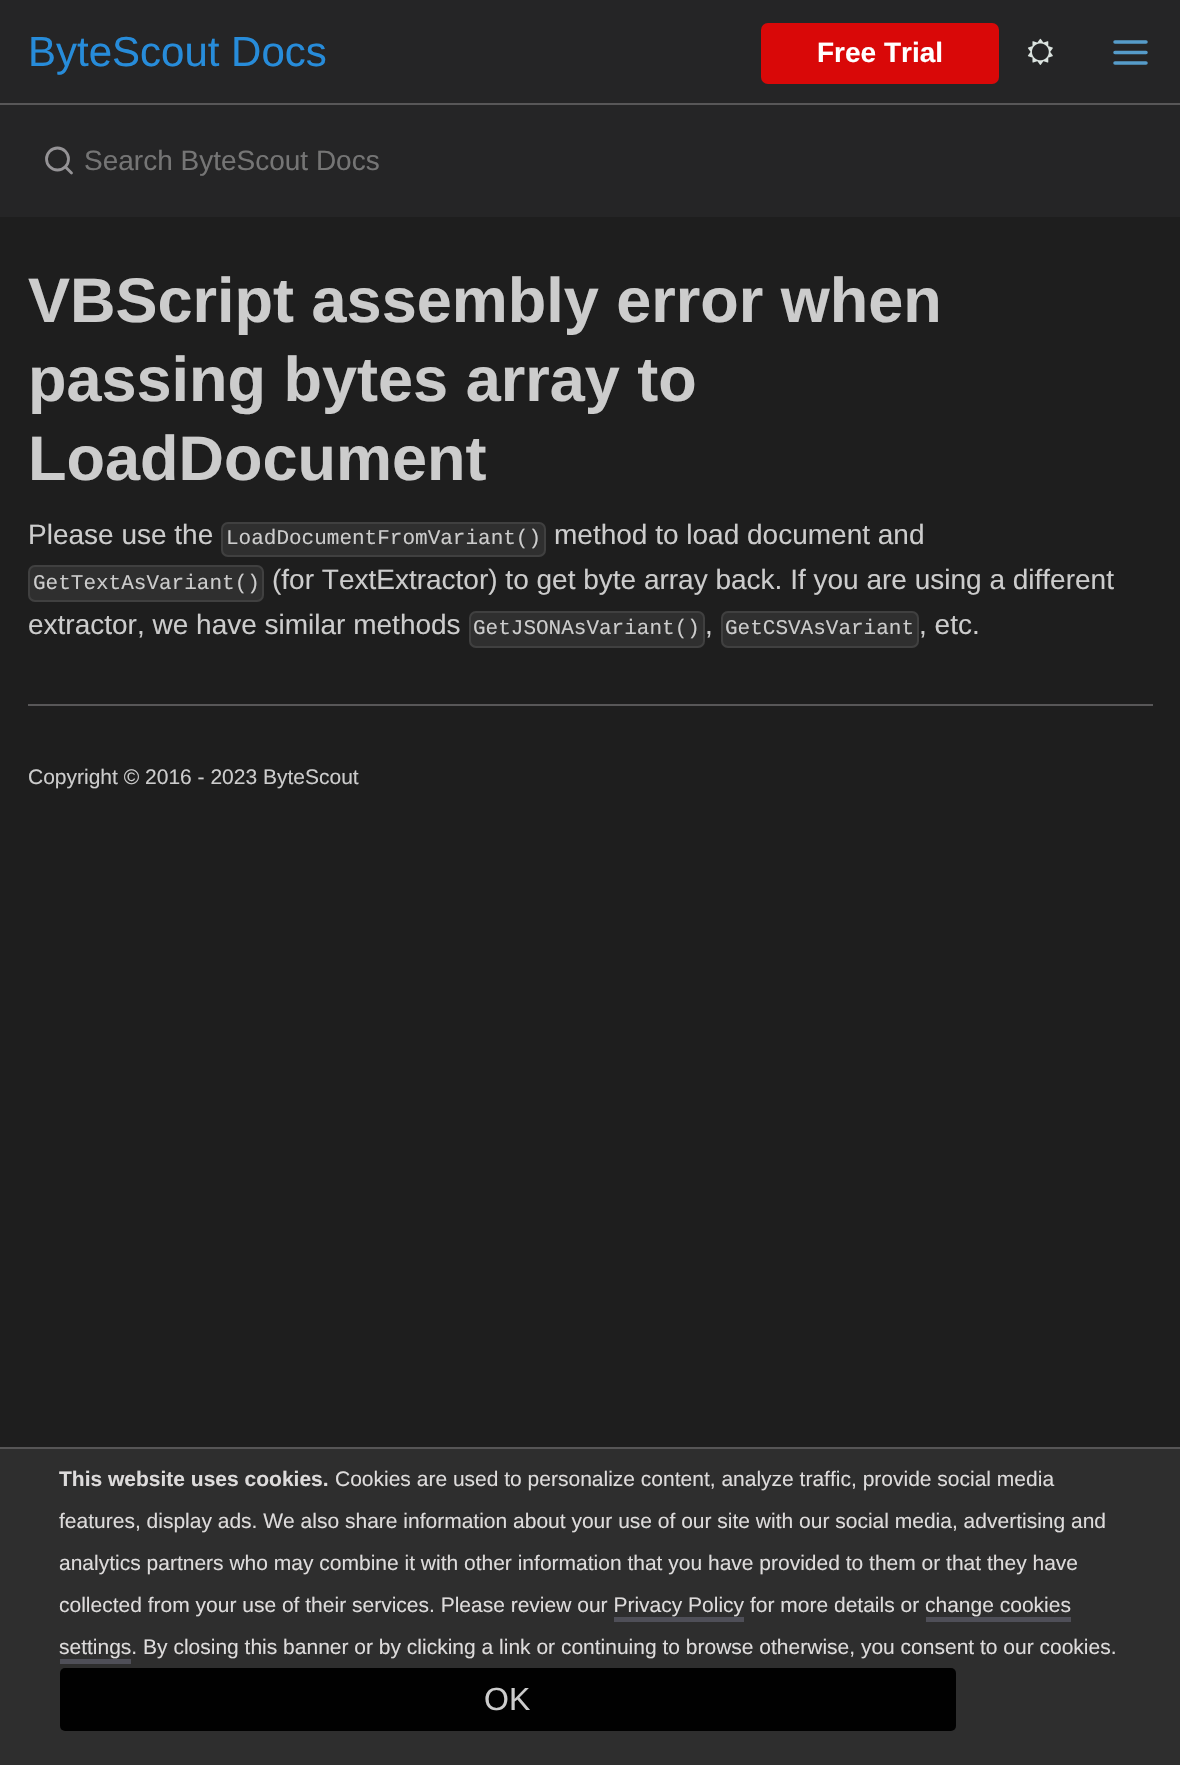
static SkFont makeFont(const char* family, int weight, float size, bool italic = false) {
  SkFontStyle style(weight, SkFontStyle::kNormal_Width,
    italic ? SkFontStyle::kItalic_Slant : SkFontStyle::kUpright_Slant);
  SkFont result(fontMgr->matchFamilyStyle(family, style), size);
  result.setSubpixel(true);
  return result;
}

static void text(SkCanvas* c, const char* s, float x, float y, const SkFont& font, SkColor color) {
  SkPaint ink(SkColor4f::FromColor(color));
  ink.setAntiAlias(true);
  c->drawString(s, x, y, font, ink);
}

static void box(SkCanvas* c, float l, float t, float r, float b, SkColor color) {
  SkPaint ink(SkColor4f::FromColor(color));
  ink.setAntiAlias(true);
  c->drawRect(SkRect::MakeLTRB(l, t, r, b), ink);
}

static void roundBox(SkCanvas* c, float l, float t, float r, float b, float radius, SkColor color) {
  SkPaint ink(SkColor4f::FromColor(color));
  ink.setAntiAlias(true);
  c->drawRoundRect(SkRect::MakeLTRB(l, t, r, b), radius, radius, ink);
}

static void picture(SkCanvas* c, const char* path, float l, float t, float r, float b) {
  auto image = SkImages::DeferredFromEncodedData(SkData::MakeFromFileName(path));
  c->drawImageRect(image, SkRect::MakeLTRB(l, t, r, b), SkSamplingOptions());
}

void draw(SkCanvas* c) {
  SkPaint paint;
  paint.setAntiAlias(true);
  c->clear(0xff1e1e1e);
  box(c, 0, 0, 1180, 217, 0xff252526);
  box(c, 0, 103, 1180, 105, 0xff585758);
  SkFont face1 = makeFont("Liberation Sans", 400, 42);
  text(c, "ByteScout Docs", 28, 66, face1, 0xff278cda);
  roundBox(c, 761, 23, 999, 84, 7, 0xffd90808);
  SkFont face2 = makeFont("Liberation Sans", 700, 28);
  text(c, "Free Trial", 817, 62, face2, 0xffffffff);
  picture(c, "img_01.png", 1027, 38, 1053, 65);
  paint.setStyle(SkPaint::kStroke_Style);
  paint.setStrokeWidth(3.5f);
  paint.setStrokeCap(SkPaint::kRound_Cap);
  paint.setStrokeJoin(SkPaint::kRound_Join);
  paint.setColor(0xff569cca);
  c->drawPath(SkPathBuilder().moveTo(1115, 52.5f).lineTo(1146, 52.5f).moveTo(1115, 42).lineTo(1146, 42).moveTo(1115, 63).lineTo(1146, 63).detach(), paint);
  paint.setStrokeWidth(2.8f);
  paint.setStrokeCap(SkPaint::kButt_Cap);
  paint.setStrokeJoin(SkPaint::kMiter_Join);
  paint.setColor(0xff959396);
  c->drawCircle(57.5f, 159, 11, paint);
  paint.setStrokeCap(SkPaint::kRound_Cap);
  paint.setStrokeJoin(SkPaint::kRound_Join);
  c->drawPath(SkPathBuilder().moveTo(71.5f, 173).lineTo(65.5f, 167).detach(), paint);
  SkFont face3 = makeFont("Liberation Sans", 400, 28);
  text(c, "Search ByteScout Docs", 84, 170, face3, 0xff757575);
  SkFont face4 = makeFont("Liberation Sans", 700, 63);
  text(c, "VBScript assembly error when", 28, 322, face4, 0xffcccccc);
  text(c, "passing bytes array to", 28, 401, face4, 0xffcccccc);
  text(c, "LoadDocument", 28, 480, face4, 0xffcccccc);
  text(c, "Please use the", 28, 544, face3, 0xffcccccc);
  paint.setStyle(SkPaint::kFill_Style);
  paint.setColor(0xff2f2f2f);
  c->drawRoundRect(SkRect::MakeLTRB(222, 523, 545, 556), 6, 6, paint);
  paint.setStyle(SkPaint::kStroke_Style);
  paint.setStrokeWidth(2);
  paint.setStrokeCap(SkPaint::kButt_Cap);
  paint.setStrokeJoin(SkPaint::kMiter_Join);
  paint.setColor(0xff404040);
  c->drawRoundRect(SkRect::MakeLTRB(222, 523, 545, 556), 6, 6, paint);
  SkFont face5 = makeFont("Liberation Mono", 400, 21);
  text(c, "LoadDocumentFromVariant()", 226, 544, face5, 0xffcccccc);
  text(c, "method to load document and", 554, 544, face3, 0xffcccccc);
  paint.setStyle(SkPaint::kFill_Style);
  paint.setColor(0xff2f2f2f);
  c->drawRoundRect(SkRect::MakeLTRB(29, 566, 263, 601), 6, 6, paint);
  paint.setStyle(SkPaint::kStroke_Style);
  paint.setColor(0xff404040);
  c->drawRoundRect(SkRect::MakeLTRB(29, 566, 263, 601), 6, 6, paint);
  text(c, "GetTextAsVariant()", 33, 589, face5, 0xffcccccc);
  text(c, "(for TextExtractor) to get byte array back. If you are using a different", 272, 589, face3, 0xffcccccc);
  text(c, "extractor, we have similar methods", 28, 634, face3, 0xffcccccc);
  paint.setStyle(SkPaint::kFill_Style);
  paint.setColor(0xff2f2f2f);
  c->drawRoundRect(SkRect::MakeLTRB(470, 612, 704, 647), 6, 6, paint);
  paint.setStyle(SkPaint::kStroke_Style);
  paint.setColor(0xff404040);
  c->drawRoundRect(SkRect::MakeLTRB(470, 612, 704, 647), 6, 6, paint);
  text(c, "GetJSONAsVariant()", 473, 634, face5, 0xffcccccc);
  text(c, ",", 705, 634, face3, 0xffcccccc);
  paint.setStyle(SkPaint::kFill_Style);
  paint.setColor(0xff2f2f2f);
  c->drawRoundRect(SkRect::MakeLTRB(722, 612, 918, 647), 6, 6, paint);
  paint.setStyle(SkPaint::kStroke_Style);
  paint.setColor(0xff404040);
  c->drawRoundRect(SkRect::MakeLTRB(722, 612, 918, 647), 6, 6, paint);
  text(c, "GetCSVAsVariant", 725, 634, face5, 0xffcccccc);
  text(c, ", etc.", 919, 634, face3, 0xffcccccc);
  box(c, 28, 704, 1153, 706, 0xff585758);
  SkFont face6 = makeFont("Liberation Sans", 400, 21);
  text(c, "Copyright © 2016 - 2023 ByteScout", 28, 784, face6, 0xffcccccc);
  box(c, 0, 1449, 1180, 1765, 0xff2e2e2e);
  box(c, 0, 1447, 1180, 1449, 0xff565556);
  SkFont face7 = makeFont("Liberation Sans", 700, 21);
  text(c, "This website uses cookies.", 59, 1486, face7, 0xffdddbdb);
  text(c, "Cookies are used to personalize content, analyze traffic, provide social media", 335, 1486, face6, 0xffdddbdb);
  text(c, "features, display ads. We also share information about your use of our site with our social media, advertising and", 59, 1528, face6, 0xffdddbdb);
  text(c, "analytics partners who may combine it with other information that you have provided to them or that they have", 59, 1570, face6, 0xffdddbdb);
  text(c, "collected from your use of their services. Please review our Privacy Policy for more details or change cookies", 59, 1612, face6, 0xffdddbdb);
  box(c, 614, 1617, 744, 1622, 0xff4f4f58);
  text(c, "settings. By closing this banner or by clicking a link or continuing to browse otherwise, you consent to our cookies.", 59, 1654, face6, 0xffdddbdb);
  box(c, 926, 1617, 1071, 1622, 0xff4f4f58);
  box(c, 60, 1659, 131, 1664, 0xff4f4f58);
  roundBox(c, 60, 1668, 956, 1731, 5, 0xff010101);
  SkFont face8 = makeFont("Liberation Sans", 400, 32);
  text(c, "OK", 484, 1710, face8, 0xffcccccc);
}
